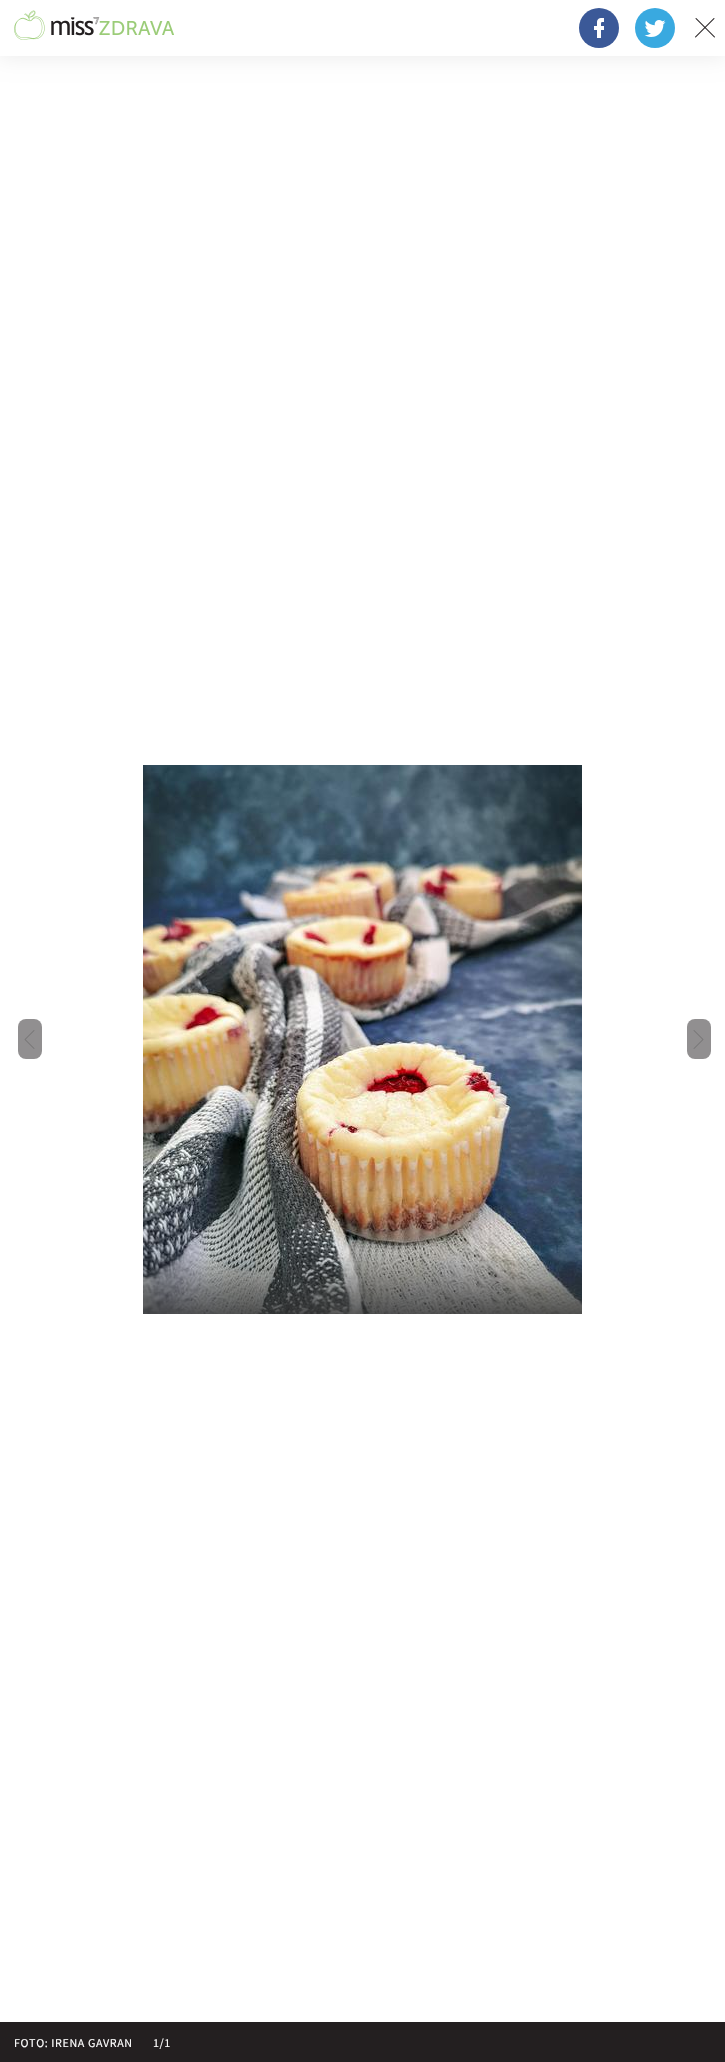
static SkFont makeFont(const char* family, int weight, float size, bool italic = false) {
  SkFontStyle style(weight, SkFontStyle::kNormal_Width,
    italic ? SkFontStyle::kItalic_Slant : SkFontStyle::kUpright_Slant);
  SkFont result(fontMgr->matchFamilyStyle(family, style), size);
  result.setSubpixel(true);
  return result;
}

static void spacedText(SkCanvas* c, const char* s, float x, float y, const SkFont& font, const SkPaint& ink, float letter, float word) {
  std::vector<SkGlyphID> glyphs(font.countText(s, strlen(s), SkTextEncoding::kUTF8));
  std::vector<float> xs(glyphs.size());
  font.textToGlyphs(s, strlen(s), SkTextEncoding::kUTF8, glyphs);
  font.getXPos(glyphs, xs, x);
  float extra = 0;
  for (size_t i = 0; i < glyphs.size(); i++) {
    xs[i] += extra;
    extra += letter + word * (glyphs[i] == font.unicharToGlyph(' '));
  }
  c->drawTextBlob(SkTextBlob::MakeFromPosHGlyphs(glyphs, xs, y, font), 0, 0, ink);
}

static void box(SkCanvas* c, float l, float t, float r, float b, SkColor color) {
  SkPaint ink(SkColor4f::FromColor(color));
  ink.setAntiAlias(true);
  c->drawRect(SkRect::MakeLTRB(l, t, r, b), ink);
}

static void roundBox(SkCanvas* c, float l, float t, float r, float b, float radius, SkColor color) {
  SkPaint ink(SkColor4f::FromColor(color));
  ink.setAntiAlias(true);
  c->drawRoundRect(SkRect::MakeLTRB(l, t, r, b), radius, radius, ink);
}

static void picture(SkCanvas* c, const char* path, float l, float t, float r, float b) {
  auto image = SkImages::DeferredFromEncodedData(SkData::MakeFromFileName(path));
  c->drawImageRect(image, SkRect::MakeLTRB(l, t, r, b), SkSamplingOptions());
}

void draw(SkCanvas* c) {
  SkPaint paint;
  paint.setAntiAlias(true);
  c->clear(0xffffffff);
  paint.setColor(0x14000000);
  paint.setMaskFilter(SkMaskFilter::MakeBlur(kNormal_SkBlurStyle, 10.5f));
  c->drawRect(SkRect::MakeLTRB(-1, -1, 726, 57), paint);
  paint.setMaskFilter(nullptr);
  box(c, 0, 0, 725, 56, 0xffffffff);
  picture(c, "img_01.png", 14, 10, 174, 40);
  paint.setColor(0xff3b5998);
  c->drawCircle(599, 28, 20, paint);
  picture(c, "img_02.png", 594, 18, 604, 38);
  paint.setColor(0xff39a9e0);
  c->drawCircle(655, 28, 20, paint);
  picture(c, "img_03.png", 644, 20, 666, 37);
  picture(c, "img_04.png", 695, 18, 715, 38);
  roundBox(c, 18, 1019, 42, 1059, 8, 0xff918f90);
  picture(c, "img_05.png", 24, 1030, 35, 1049);
  roundBox(c, 687, 1019, 711, 1059, 8, 0xff918f90);
  picture(c, "img_06.png", 693, 1030, 704, 1049);
  picture(c, "img_07.png", 143, 765, 582, 1314);
  box(c, 0, 2022, 725, 2062, 0xff231f20);
  SkFont face1 = makeFont("Source Sans Pro", 400, 12);
  paint.setColor(0xffffffff);
  spacedText(c, "FOTO: IRENA GAVRAN", 14, 2047, face1, paint, 0.6f, 0);
  spacedText(c, "1/1", 153, 2047, face1, paint, 0.6f, 0);
}
